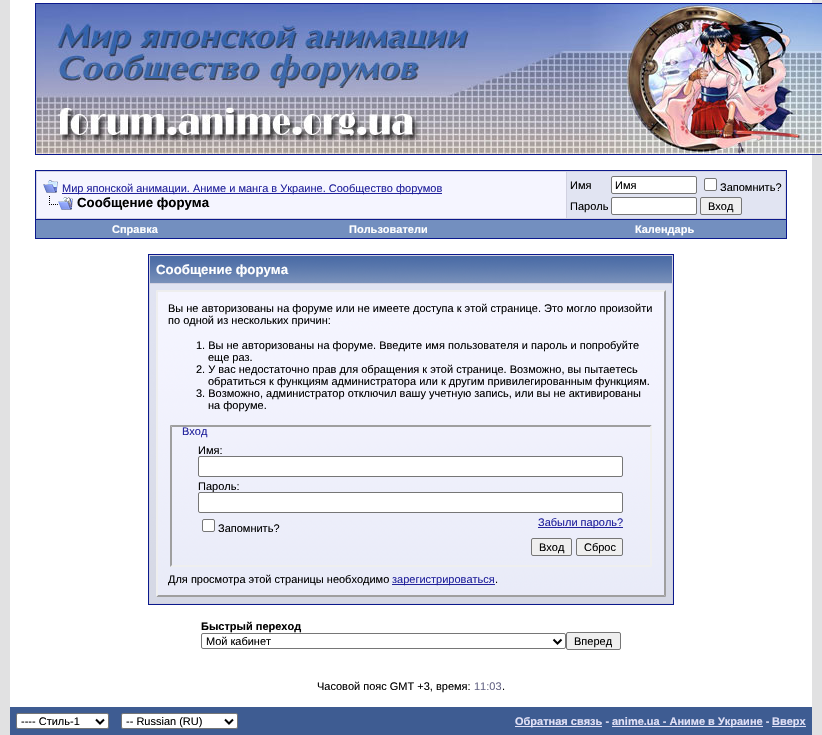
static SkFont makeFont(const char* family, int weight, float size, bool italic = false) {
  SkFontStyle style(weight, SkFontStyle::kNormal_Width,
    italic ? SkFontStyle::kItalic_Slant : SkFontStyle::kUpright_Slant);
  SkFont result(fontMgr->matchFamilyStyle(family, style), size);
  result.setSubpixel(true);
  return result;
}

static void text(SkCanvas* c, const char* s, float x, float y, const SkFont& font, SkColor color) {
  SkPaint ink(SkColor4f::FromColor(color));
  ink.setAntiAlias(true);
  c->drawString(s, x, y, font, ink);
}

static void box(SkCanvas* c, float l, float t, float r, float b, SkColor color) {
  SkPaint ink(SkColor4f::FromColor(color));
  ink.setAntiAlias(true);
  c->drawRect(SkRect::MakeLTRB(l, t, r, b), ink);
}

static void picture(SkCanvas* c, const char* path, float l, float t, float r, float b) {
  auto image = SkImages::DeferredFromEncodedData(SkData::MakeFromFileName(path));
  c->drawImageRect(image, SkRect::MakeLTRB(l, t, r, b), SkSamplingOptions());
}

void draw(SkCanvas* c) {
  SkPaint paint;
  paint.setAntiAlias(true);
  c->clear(0xffe1e1e2);
  box(c, 10, 0, 812, 707, 0xffffffff);
  paint.setStyle(SkPaint::kStroke_Style);
  paint.setStrokeWidth(1);
  paint.setColor(0xff0b198c);
  c->drawRect(SkRect::MakeLTRB(35.5f, 3.5f, 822.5f, 154.5f), paint);
  picture(c, "img_01.png", 36, 4, 586, 154);
  picture(c, "img_02.png", 586, 4, 590, 154);
  picture(c, "img_03.png", 590, 4, 822, 154);
  paint.setStyle(SkPaint::kFill_Style);
  paint.setColor(0xffd1d1e1);
  c->drawRect(SkRect::MakeLTRB(35.5f, 170.5f, 786.5f, 219.5f), paint);
  paint.setStyle(SkPaint::kStroke_Style);
  paint.setColor(0xff0b198c);
  c->drawRect(SkRect::MakeLTRB(35.5f, 170.5f, 786.5f, 219.5f), paint);
  box(c, 37, 172, 566, 218, 0xfff5f5ff);
  picture(c, "img_04.png", 43, 180, 58, 193);
  box(c, 62, 193, 442, 194, 0xff22229c);
  SkFont face1 = makeFont("Liberation Sans", 400, 11);
  text(c, "Мир японской анимации. Аниме и манга в Украине. Сообщество форумов", 62, 192, face1, 0xff22229c);
  picture(c, "img_05.png", 49, 196, 73, 210);
  SkFont face2 = makeFont("Liberation Sans", 700, 13.25f);
  text(c, "Сообщение форума", 77, 207, face2, 0xff000000);
  box(c, 567, 172, 785, 218, 0xffe1e4f2);
  text(c, "Имя", 570, 189, face1, 0xff000000);
  paint.setStyle(SkPaint::kFill_Style);
  paint.setColor(0xffffffff);
  c->drawRoundRect(SkRect::MakeLTRB(611.5f, 176.5f, 696.5f, 193.5f), 1.5f, 1.5f, paint);
  paint.setStyle(SkPaint::kStroke_Style);
  paint.setColor(0xff767676);
  c->drawRoundRect(SkRect::MakeLTRB(611.5f, 176.5f, 696.5f, 193.5f), 1.5f, 1.5f, paint);
  text(c, "Имя", 615, 189, face1, 0xff000000);
  paint.setStyle(SkPaint::kFill_Style);
  paint.setColor(0xffffffff);
  c->drawRoundRect(SkRect::MakeLTRB(704.5f, 178.5f, 716.5f, 190.5f), 1.5f, 1.5f, paint);
  paint.setStyle(SkPaint::kStroke_Style);
  paint.setColor(0xff767676);
  c->drawRoundRect(SkRect::MakeLTRB(704.5f, 178.5f, 716.5f, 190.5f), 1.5f, 1.5f, paint);
  text(c, "Запомнить?", 720, 191, face1, 0xff000000);
  text(c, "Пароль", 570, 210, face1, 0xff000000);
  paint.setStyle(SkPaint::kFill_Style);
  paint.setColor(0xffffffff);
  c->drawRoundRect(SkRect::MakeLTRB(611.5f, 197.5f, 696.5f, 214.5f), 1.5f, 1.5f, paint);
  paint.setStyle(SkPaint::kStroke_Style);
  paint.setColor(0xff767676);
  c->drawRoundRect(SkRect::MakeLTRB(611.5f, 197.5f, 696.5f, 214.5f), 1.5f, 1.5f, paint);
  paint.setStyle(SkPaint::kFill_Style);
  paint.setColor(0xffefefef);
  c->drawRoundRect(SkRect::MakeLTRB(700.5f, 197.5f, 741.5f, 214.5f), 1.5f, 1.5f, paint);
  paint.setStyle(SkPaint::kStroke_Style);
  paint.setColor(0xff767676);
  c->drawRoundRect(SkRect::MakeLTRB(700.5f, 197.5f, 741.5f, 214.5f), 1.5f, 1.5f, paint);
  text(c, "Вход", 708, 210, face1, 0xff000000);
  box(c, 786, 220, 787, 239, 0xff0b198c);
  box(c, 35, 238, 787, 239, 0xff0b198c);
  box(c, 35, 220, 36, 239, 0xff0b198c);
  box(c, 36, 220, 786, 238, 0xff738fbf);
  SkFont face3 = makeFont("Liberation Sans", 700, 11);
  text(c, "Справка", 112, 233, face3, 0xffffffff);
  text(c, "Пользователи", 349, 233, face3, 0xffffffff);
  text(c, "Календарь", 635, 233, face3, 0xffffffff);
  paint.setStyle(SkPaint::kFill_Style);
  paint.setColor(0xffd1d1e1);
  c->drawRect(SkRect::MakeLTRB(148.5f, 254.5f, 673.5f, 604.5f), paint);
  paint.setStyle(SkPaint::kStroke_Style);
  paint.setColor(0xff0b198c);
  c->drawRect(SkRect::MakeLTRB(148.5f, 254.5f, 673.5f, 604.5f), paint);
  picture(c, "img_06.png", 150, 256, 672, 283);
  text(c, "Сообщение форума", 156, 274, face2, 0xffffffff);
  picture(c, "img_07.png", 150, 284, 672, 603);
  picture(c, "img_08.png", 156, 292, 666, 597);
  paint.setStyle(SkPaint::kFill_Style);
  paint.setColor(0xffeeeeee);
  c->drawPath(SkPathBuilder().moveTo(156, 290).lineTo(666, 290).lineTo(664, 292).lineTo(158, 292).close().detach(), paint);
  paint.setColor(0xff9f9f9f);
  c->drawPath(SkPathBuilder().moveTo(666, 290).lineTo(666, 597).lineTo(664, 595).lineTo(664, 292).close().detach(), paint);
  c->drawPath(SkPathBuilder().moveTo(666, 597).lineTo(156, 597).lineTo(158, 595).lineTo(664, 595).close().detach(), paint);
  paint.setColor(0xffeeeeee);
  c->drawPath(SkPathBuilder().moveTo(156, 597).lineTo(156, 290).lineTo(158, 292).lineTo(158, 595).close().detach(), paint);
  text(c, "Вы не авторизованы на форуме или не имеете доступа к этой странице. Это могло произойти", 168, 312, face1, 0xff000000);
  text(c, "по одной из нескольких причин:", 168, 324, face1, 0xff000000);
  text(c, "1. Вы не авторизованы на форуме. Введите имя пользователя и пароль и попробуйте", 196, 349, face1, 0xff000000);
  text(c, "еще раз.", 208, 361, face1, 0xff000000);
  text(c, "2. У вас недостаточно прав для обращения к этой странице. Возможно, вы пытаетесь", 196, 373, face1, 0xff000000);
  text(c, "обратиться к функциям администратора или к другим привилегированным функциям.", 208, 385, face1, 0xff000000);
  text(c, "3. Возможно, администратор отключил вашу учетную запись, или вы не активированы", 196, 397, face1, 0xff000000);
  text(c, "на форуме.", 208, 409, face1, 0xff000000);
  paint.setColor(0xff9f9f9f);
  c->drawPath(SkPathBuilder().moveTo(170, 425).lineTo(652, 425).lineTo(650, 427).lineTo(172, 427).close().detach(), paint);
  paint.setColor(0xffefefef);
  c->drawPath(SkPathBuilder().moveTo(652, 425).lineTo(652, 567).lineTo(650, 565).lineTo(650, 427).close().detach(), paint);
  c->drawPath(SkPathBuilder().moveTo(652, 567).lineTo(170, 567).lineTo(172, 565).lineTo(650, 565).close().detach(), paint);
  paint.setColor(0xff9f9f9f);
  c->drawPath(SkPathBuilder().moveTo(170, 567).lineTo(170, 425).lineTo(172, 427).lineTo(172, 565).close().detach(), paint);
  text(c, "Вход", 182, 435, face1, 0xff22229c);
  text(c, "Имя:", 198, 454, face1, 0xff000000);
  paint.setColor(0xffffffff);
  c->drawRoundRect(SkRect::MakeLTRB(198.5f, 456.5f, 622.5f, 476.5f), 1.5f, 1.5f, paint);
  paint.setStyle(SkPaint::kStroke_Style);
  paint.setColor(0xff767676);
  c->drawRoundRect(SkRect::MakeLTRB(198.5f, 456.5f, 622.5f, 476.5f), 1.5f, 1.5f, paint);
  text(c, "Пароль:", 198, 490, face1, 0xff000000);
  paint.setStyle(SkPaint::kFill_Style);
  paint.setColor(0xffffffff);
  c->drawRoundRect(SkRect::MakeLTRB(198.5f, 492.5f, 622.5f, 512.5f), 1.5f, 1.5f, paint);
  paint.setStyle(SkPaint::kStroke_Style);
  paint.setColor(0xff767676);
  c->drawRoundRect(SkRect::MakeLTRB(198.5f, 492.5f, 622.5f, 512.5f), 1.5f, 1.5f, paint);
  paint.setStyle(SkPaint::kFill_Style);
  paint.setColor(0xffffffff);
  c->drawRoundRect(SkRect::MakeLTRB(202.5f, 519.5f, 214.5f, 531.5f), 1.5f, 1.5f, paint);
  paint.setStyle(SkPaint::kStroke_Style);
  paint.setColor(0xff767676);
  c->drawRoundRect(SkRect::MakeLTRB(202.5f, 519.5f, 214.5f, 531.5f), 1.5f, 1.5f, paint);
  text(c, "Запомнить?", 218, 532, face1, 0xff000000);
  box(c, 538, 527, 623, 528, 0xff22229c);
  text(c, "Забыли пароль?", 538, 526, face1, 0xff22229c);
  paint.setStyle(SkPaint::kFill_Style);
  paint.setColor(0xffefefef);
  c->drawRoundRect(SkRect::MakeLTRB(531.5f, 538.5f, 571.5f, 555.5f), 1.5f, 1.5f, paint);
  paint.setStyle(SkPaint::kStroke_Style);
  paint.setColor(0xff767676);
  c->drawRoundRect(SkRect::MakeLTRB(531.5f, 538.5f, 571.5f, 555.5f), 1.5f, 1.5f, paint);
  text(c, "Вход", 539, 551, face1, 0xff000000);
  paint.setStyle(SkPaint::kFill_Style);
  paint.setColor(0xffefefef);
  c->drawRoundRect(SkRect::MakeLTRB(576.5f, 538.5f, 622.5f, 555.5f), 1.5f, 1.5f, paint);
  paint.setStyle(SkPaint::kStroke_Style);
  paint.setColor(0xff767676);
  c->drawRoundRect(SkRect::MakeLTRB(576.5f, 538.5f, 622.5f, 555.5f), 1.5f, 1.5f, paint);
  text(c, "Сброс", 584, 551, face1, 0xff000000);
  text(c, "Для просмотра этой страницы необходимо", 168, 583, face1, 0xff000000);
  box(c, 392, 584, 495, 585, 0xff22229c);
  text(c, "зарегистрироваться", 392, 583, face1, 0xff22229c);
  text(c, ".", 495, 583, face1, 0xff000000);
  text(c, "Быстрый переход", 201, 630, face3, 0xff000000);
  c->drawRoundRect(SkRect::MakeLTRB(201.5f, 633.5f, 565.5f, 648.5f), 1.5f, 1.5f, paint);
  paint.setStrokeWidth(2);
  paint.setColor(0xff000000);
  c->drawPath(SkPathBuilder().moveTo(553.5f, 639.5f).lineTo(557.5f, 643.5f).lineTo(561.5f, 639.5f).detach(), paint);
  text(c, "Мой кабинет", 206, 645, face1, 0xff000000);
  paint.setStyle(SkPaint::kFill_Style);
  paint.setColor(0xffefefef);
  c->drawRoundRect(SkRect::MakeLTRB(566.5f, 632.5f, 620.5f, 649.5f), 1.5f, 1.5f, paint);
  paint.setStyle(SkPaint::kStroke_Style);
  paint.setStrokeWidth(1);
  paint.setColor(0xff767676);
  c->drawRoundRect(SkRect::MakeLTRB(566.5f, 632.5f, 620.5f, 649.5f), 1.5f, 1.5f, paint);
  text(c, "Вперед", 574, 645, face1, 0xff000000);
  text(c, "Часовой пояс GMT +3, время:", 317, 690, face1, 0xff000000);
  text(c, "11:03", 474, 690, face1, 0xff666686);
  text(c, ".", 502, 690, face1, 0xff000000);
  box(c, 10, 707, 812, 735, 0xff3e5c92);
  paint.setStyle(SkPaint::kFill_Style);
  paint.setColor(0xffffffff);
  c->drawRoundRect(SkRect::MakeLTRB(16.5f, 713.5f, 108.5f, 728.5f), 1.5f, 1.5f, paint);
  paint.setStyle(SkPaint::kStroke_Style);
  paint.setColor(0xff767676);
  c->drawRoundRect(SkRect::MakeLTRB(16.5f, 713.5f, 108.5f, 728.5f), 1.5f, 1.5f, paint);
  paint.setStrokeWidth(2);
  paint.setColor(0xff000000);
  c->drawPath(SkPathBuilder().moveTo(96, 719.5f).lineTo(100, 723.5f).lineTo(104, 719.5f).detach(), paint);
  text(c, "---- Стиль-1", 21, 725, face1, 0xff000000);
  paint.setStyle(SkPaint::kFill_Style);
  paint.setColor(0xffffffff);
  c->drawRoundRect(SkRect::MakeLTRB(121.5f, 713.5f, 237.5f, 728.5f), 1.5f, 1.5f, paint);
  paint.setStyle(SkPaint::kStroke_Style);
  paint.setStrokeWidth(1);
  paint.setColor(0xff767676);
  c->drawRoundRect(SkRect::MakeLTRB(121.5f, 713.5f, 237.5f, 728.5f), 1.5f, 1.5f, paint);
  paint.setStrokeWidth(2);
  paint.setColor(0xff000000);
  c->drawPath(SkPathBuilder().moveTo(225, 719.5f).lineTo(229, 723.5f).lineTo(233, 719.5f).detach(), paint);
  text(c, "-- Russian (RU)", 126, 725, face1, 0xff000000);
  box(c, 515, 726, 602, 727, 0xffe0e0f6);
  text(c, "Обратная связь -", 515, 725, face3, 0xffe0e0f6);
  box(c, 612, 726, 763, 727, 0xffe0e0f6);
  text(c, "anime.ua - Аниме в Украине -", 612, 725, face3, 0xffe0e0f6);
  box(c, 772, 726, 806, 727, 0xffe0e0f6);
  text(c, "Вверх", 772, 725, face3, 0xffe0e0f6);
}
